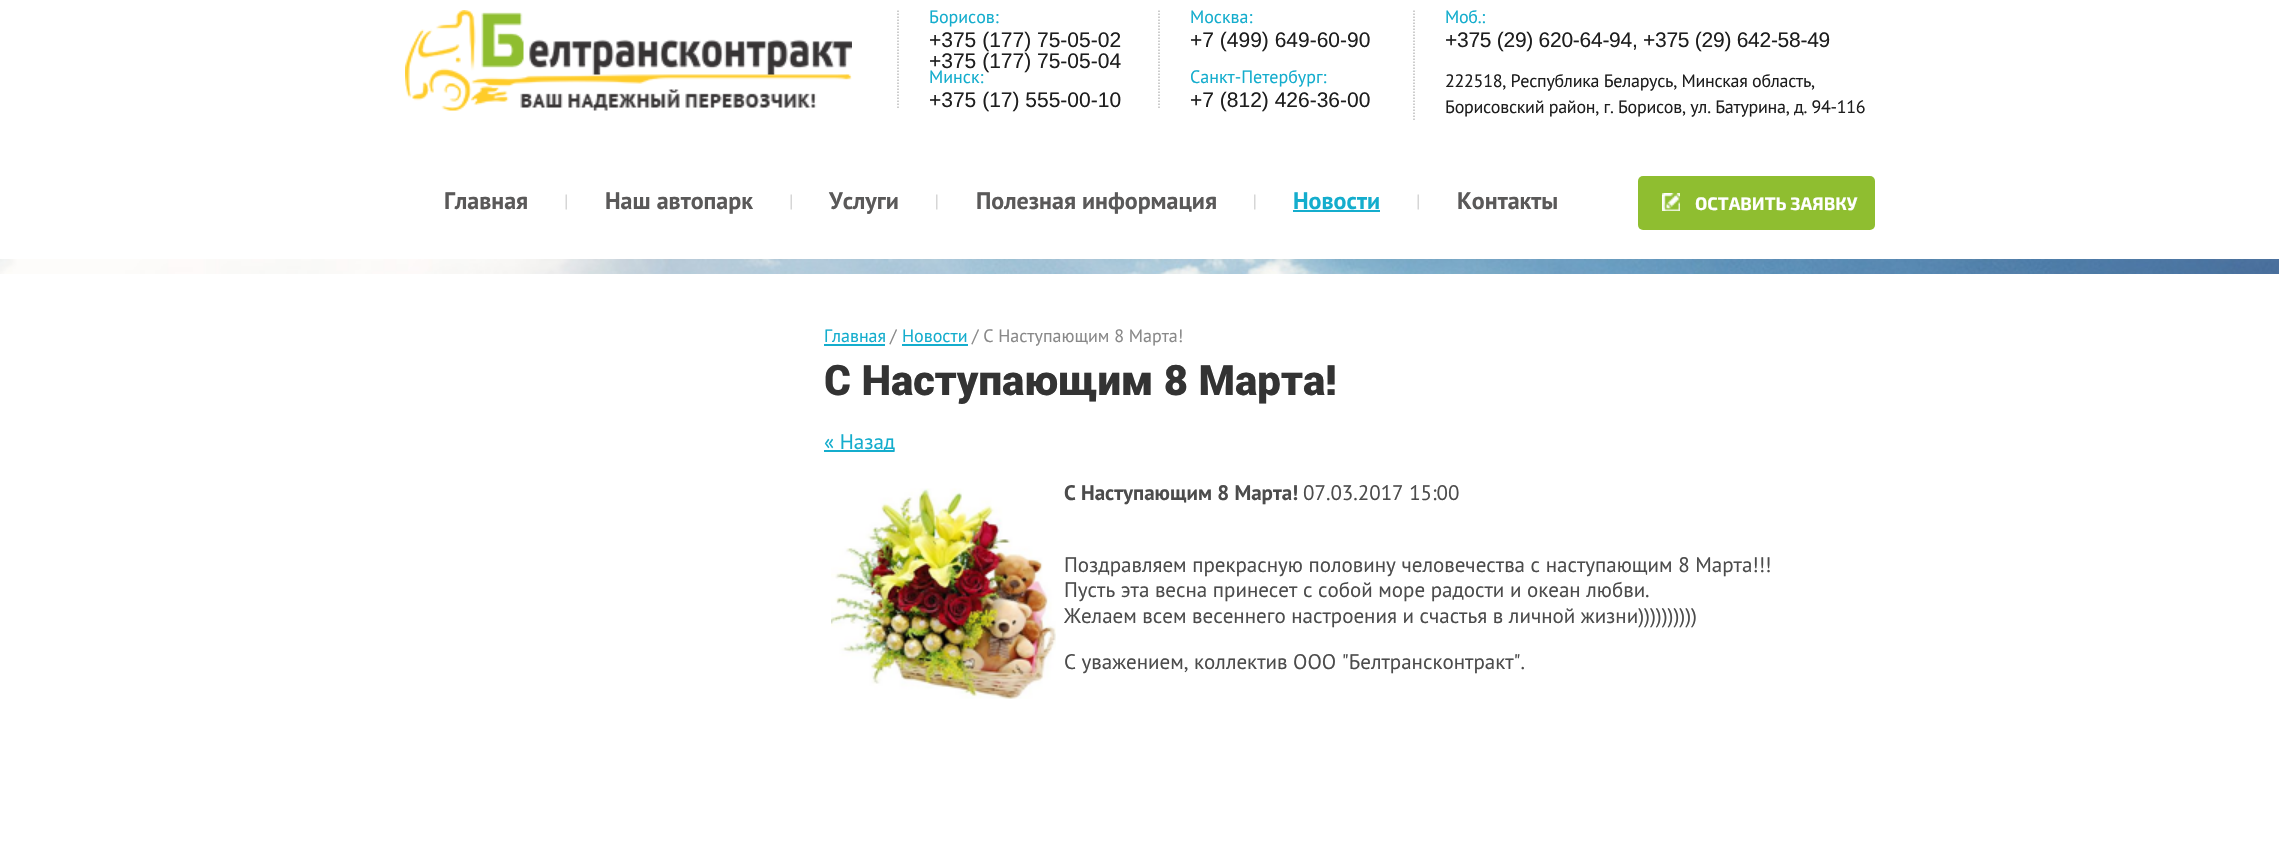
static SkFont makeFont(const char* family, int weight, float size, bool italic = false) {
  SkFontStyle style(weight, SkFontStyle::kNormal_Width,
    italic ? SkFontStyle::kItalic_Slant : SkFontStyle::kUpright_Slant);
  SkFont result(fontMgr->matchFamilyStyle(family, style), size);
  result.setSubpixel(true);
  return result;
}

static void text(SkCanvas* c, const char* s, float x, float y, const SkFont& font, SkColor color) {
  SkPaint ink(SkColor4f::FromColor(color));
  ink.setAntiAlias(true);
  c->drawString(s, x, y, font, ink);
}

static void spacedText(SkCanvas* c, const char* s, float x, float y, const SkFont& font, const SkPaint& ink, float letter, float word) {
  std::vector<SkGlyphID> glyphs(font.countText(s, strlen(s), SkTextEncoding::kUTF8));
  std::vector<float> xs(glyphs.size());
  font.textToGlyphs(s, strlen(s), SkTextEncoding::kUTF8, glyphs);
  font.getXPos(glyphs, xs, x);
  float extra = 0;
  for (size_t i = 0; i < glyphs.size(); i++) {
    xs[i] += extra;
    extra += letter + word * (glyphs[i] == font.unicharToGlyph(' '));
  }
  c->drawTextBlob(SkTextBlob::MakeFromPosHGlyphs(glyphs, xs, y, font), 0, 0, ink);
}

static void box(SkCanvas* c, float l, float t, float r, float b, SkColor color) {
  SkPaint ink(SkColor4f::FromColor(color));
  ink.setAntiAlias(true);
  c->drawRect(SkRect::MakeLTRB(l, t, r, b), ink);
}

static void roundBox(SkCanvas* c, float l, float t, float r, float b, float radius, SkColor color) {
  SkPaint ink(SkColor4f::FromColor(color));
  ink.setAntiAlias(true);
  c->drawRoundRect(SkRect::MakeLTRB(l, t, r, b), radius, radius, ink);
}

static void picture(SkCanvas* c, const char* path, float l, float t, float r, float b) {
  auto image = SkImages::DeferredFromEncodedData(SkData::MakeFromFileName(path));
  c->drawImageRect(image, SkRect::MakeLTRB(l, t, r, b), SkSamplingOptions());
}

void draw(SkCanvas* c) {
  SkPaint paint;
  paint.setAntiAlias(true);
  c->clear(0xffffffff);
  picture(c, "img_01.png", 405, 10, 852, 111);
  paint.setStyle(SkPaint::kStroke_Style);
  paint.setStrokeWidth(1.5f);
  paint.setColor(0xffbdbdbd);
  paint.setPathEffect(SkDashPathEffect::Make({{1.5f, 1.5f}}, 0));
  c->drawPath(SkPathBuilder().moveTo(898, 10.5f).lineTo(898, 109.5f).detach(), paint);
  paint.setPathEffect(nullptr);
  SkFont face1 = makeFont("PT Sans", 400, 18);
  text(c, "Борисов:", 929, 23, face1, 0xff14adcd);
  SkFont face2 = makeFont("Liberation Sans", 400, 21);
  text(c, "+375 (177) 75-05-02", 929, 47, face2, 0xff1e1e1e);
  text(c, "+375 (177) 75-05-04", 929, 68, face2, 0xff1e1e1e);
  text(c, "Минск:", 929, 83, face1, 0xff14adcd);
  text(c, "+375 (17) 555-00-10", 929, 107, face2, 0xff1e1e1e);
  paint.setPathEffect(SkDashPathEffect::Make({{1.5f, 1.5f}}, 0));
  c->drawPath(SkPathBuilder().moveTo(1159, 10.5f).lineTo(1159, 109.5f).detach(), paint);
  paint.setPathEffect(nullptr);
  text(c, "Москва:", 1190, 23, face1, 0xff14adcd);
  text(c, "+7 (499) 649-60-90", 1190, 47, face2, 0xff1e1e1e);
  text(c, "Санкт-Петербург:", 1190, 83, face1, 0xff14adcd);
  text(c, "+7 (812) 426-36-00", 1190, 107, face2, 0xff1e1e1e);
  paint.setPathEffect(SkDashPathEffect::Make({{1.5f, 1.5f}}, 0));
  c->drawPath(SkPathBuilder().moveTo(1414, 10.5f).lineTo(1414, 121.5f).detach(), paint);
  paint.setPathEffect(nullptr);
  paint.setStyle(SkPaint::kFill_Style);
  paint.setColor(0xff14adcd);
  spacedText(c, "Моб.:", 1445, 23, face1, paint, -0.27f, 0);
  paint.setColor(0xff1e1e1e);
  spacedText(c, "+375 (29) 620-64-94, +375 (29) 642-58-49", 1445, 47, face2, paint, -0.27f, 0);
  spacedText(c, "222518, Республика Беларусь, Минская область,", 1445, 87, face1, paint, -0.27f, 0);
  spacedText(c, "Борисовский район, г. Борисов, ул. Батурина, д. 94-116", 1445, 113, face1, paint, -0.27f, 0);
  SkFont face3 = makeFont("PT Sans", 700, 24);
  text(c, "Главная", 444, 209, face3, 0xff5a5959);
  picture(c, "img_02.png", 565, 194, 567, 210);
  text(c, "Наш автопарк", 605, 209, face3, 0xff5a5959);
  picture(c, "img_02.png", 790, 194, 792, 210);
  text(c, "Услуги", 829, 209, face3, 0xff5a5959);
  picture(c, "img_03.png", 936, 194, 938, 210);
  text(c, "Полезная информация", 976, 209, face3, 0xff5a5959);
  picture(c, "img_03.png", 1254, 194, 1256, 210);
  text(c, "Новости", 1293, 209, face3, 0xff14adcd);
  box(c, 1293, 210, 1380, 212, 0xff14adcd);
  picture(c, "img_02.png", 1417, 194, 1419, 210);
  text(c, "Контакты", 1457, 209, face3, 0xff5a5959);
  roundBox(c, 1638, 176, 1875, 230, 5, 0xff8fbe30);
  picture(c, "img_04.png", 1662, 193, 1680, 211);
  SkFont face4 = makeFont("Exo 2", 700, 18);
  text(c, "ОСТАВИТЬ ЗАЯВКУ", 1695, 210, face4, 0xffffffff);
  picture(c, "img_05.png", 0, 259, 2279, 274);
  text(c, "Главная", 824, 342, face1, 0xff14adcd);
  box(c, 824, 344, 885, 346, 0xff14adcd);
  text(c, "/", 890, 342, face1, 0xff898989);
  text(c, "Новости", 902, 342, face1, 0xff14adcd);
  box(c, 902, 344, 968, 346, 0xff14adcd);
  text(c, "/ С Наступающим 8 Марта!", 972, 342, face1, 0xff898989);
  SkFont face5 = makeFont("Roboto", 900, 42);
  text(c, "С Наступающим 8 Марта!", 824, 395, face5, 0xff333333);
  box(c, 824, 450, 894, 452, 0xff14adcd);
  SkFont face6 = makeFont("PT Sans", 400, 21);
  text(c, "« Назад", 824, 449, face6, 0xff14adcd);
  picture(c, "img_06.png", 831, 488, 1056, 699);
  SkFont face7 = makeFont("PT Sans", 700, 21);
  text(c, "С Наступающим 8 Марта!", 1064, 500, face7, 0xff4c4c4c);
  text(c, "07.03.2017 15:00", 1303, 500, face6, 0xff4c4c4c);
  text(c, "Поздравляем прекрасную половину человечества с наступающим 8 Марта!!!", 1064, 572, face6, 0xff4c4c4c);
  text(c, "Пусть эта весна принесет с собой море радости и океан любви.", 1064, 597, face6, 0xff4c4c4c);
  text(c, "Желаем всем весеннего настроения и счастья в личной жизни))))))))))", 1064, 623, face6, 0xff4c4c4c);
  text(c, "С уважением, коллектив ООО \"Белтрансконтракт\".", 1064, 669, face6, 0xff4c4c4c);
}
